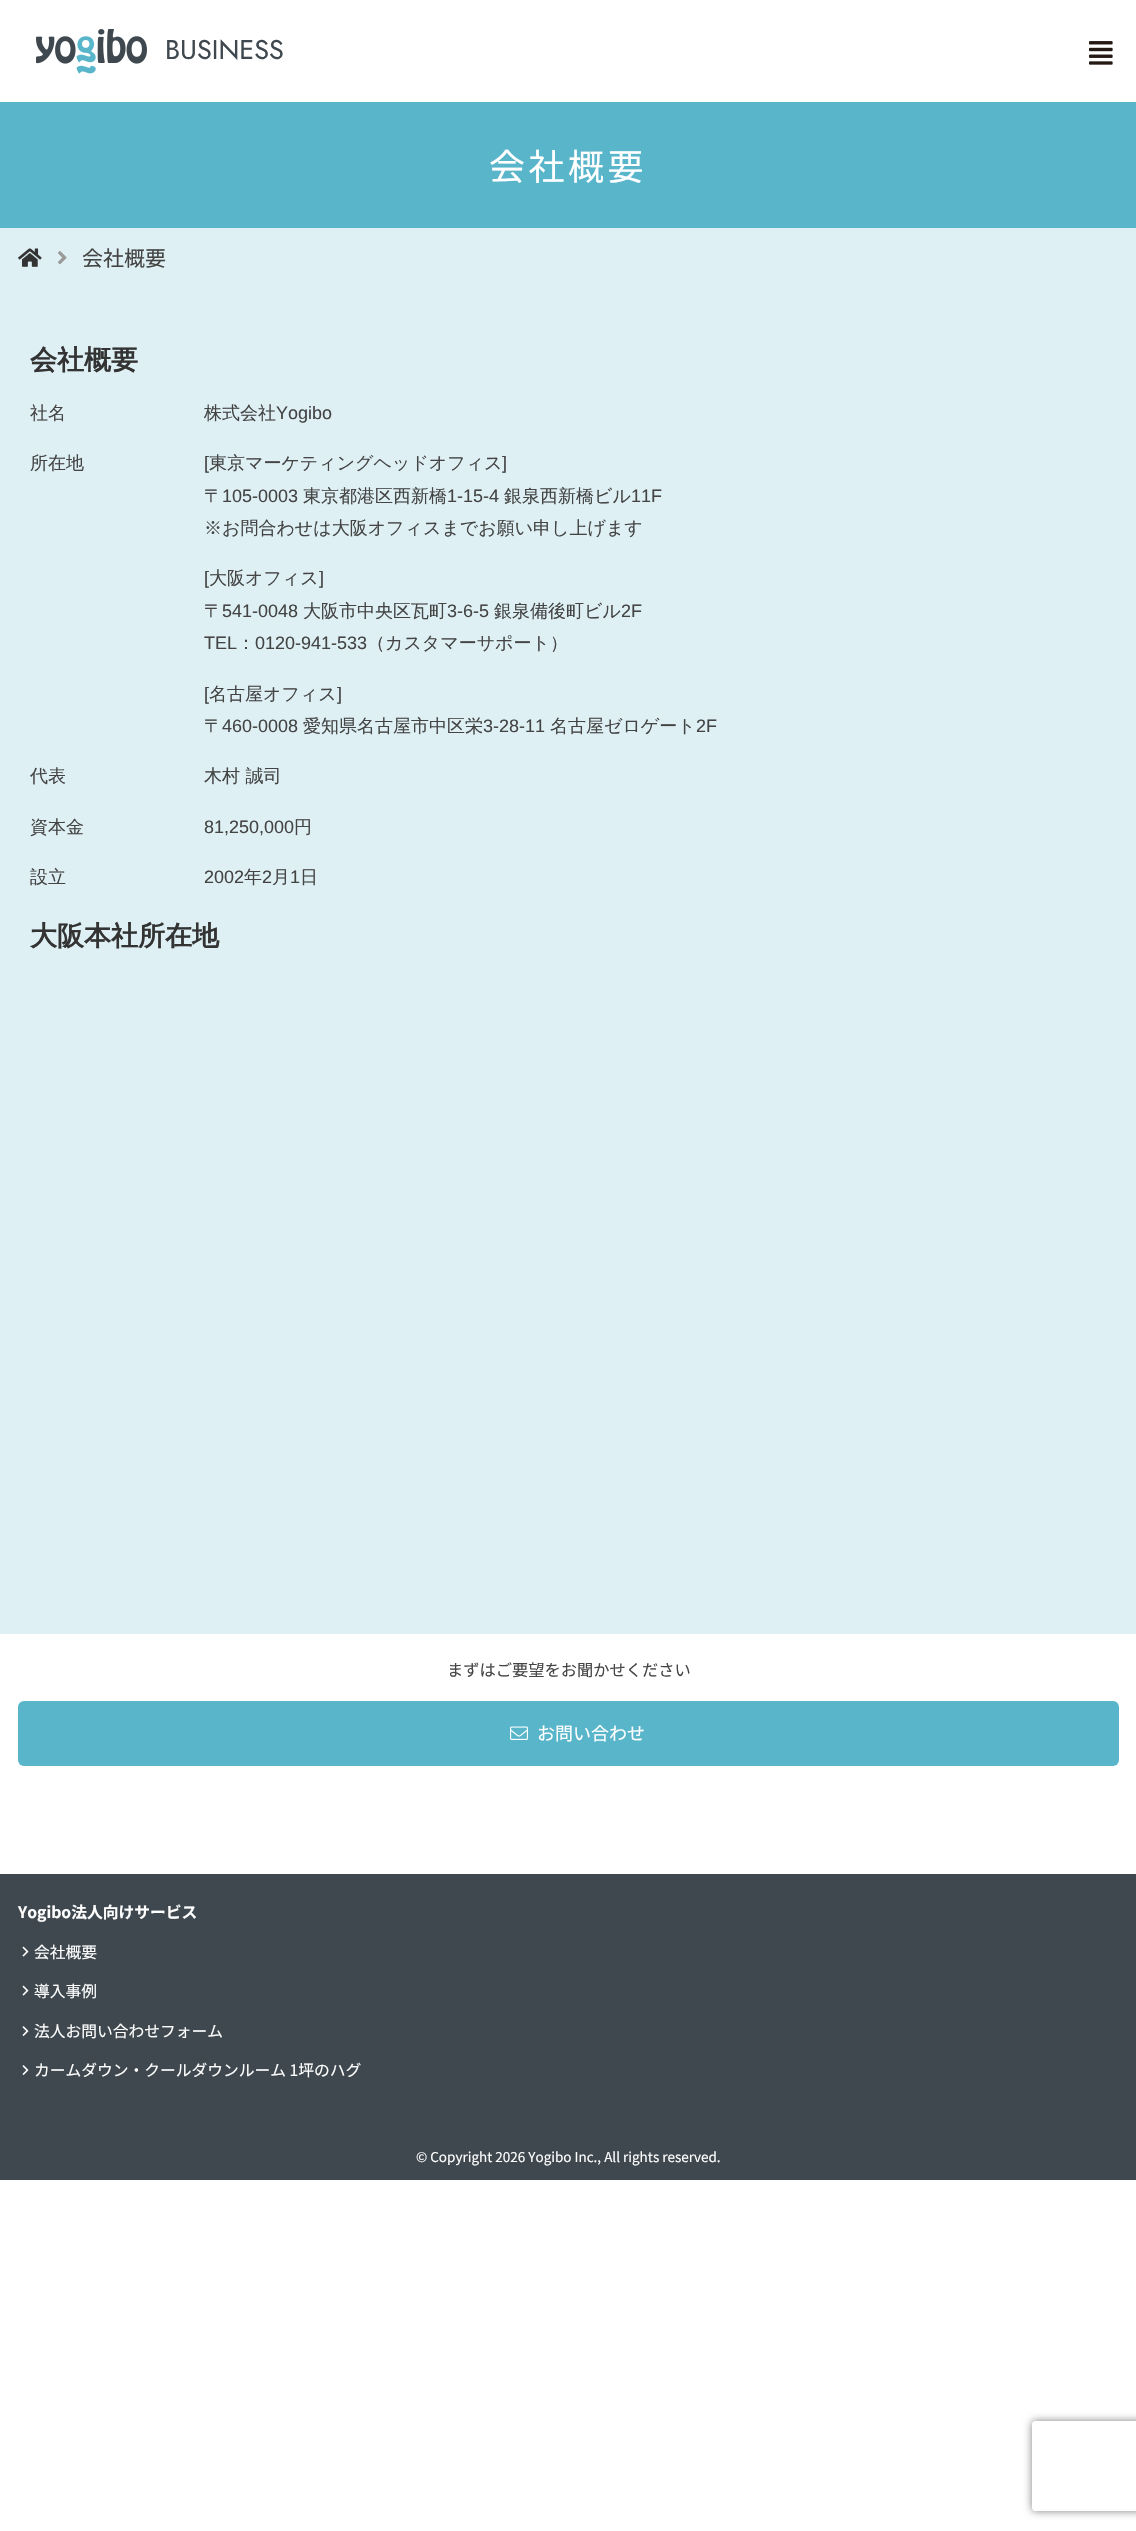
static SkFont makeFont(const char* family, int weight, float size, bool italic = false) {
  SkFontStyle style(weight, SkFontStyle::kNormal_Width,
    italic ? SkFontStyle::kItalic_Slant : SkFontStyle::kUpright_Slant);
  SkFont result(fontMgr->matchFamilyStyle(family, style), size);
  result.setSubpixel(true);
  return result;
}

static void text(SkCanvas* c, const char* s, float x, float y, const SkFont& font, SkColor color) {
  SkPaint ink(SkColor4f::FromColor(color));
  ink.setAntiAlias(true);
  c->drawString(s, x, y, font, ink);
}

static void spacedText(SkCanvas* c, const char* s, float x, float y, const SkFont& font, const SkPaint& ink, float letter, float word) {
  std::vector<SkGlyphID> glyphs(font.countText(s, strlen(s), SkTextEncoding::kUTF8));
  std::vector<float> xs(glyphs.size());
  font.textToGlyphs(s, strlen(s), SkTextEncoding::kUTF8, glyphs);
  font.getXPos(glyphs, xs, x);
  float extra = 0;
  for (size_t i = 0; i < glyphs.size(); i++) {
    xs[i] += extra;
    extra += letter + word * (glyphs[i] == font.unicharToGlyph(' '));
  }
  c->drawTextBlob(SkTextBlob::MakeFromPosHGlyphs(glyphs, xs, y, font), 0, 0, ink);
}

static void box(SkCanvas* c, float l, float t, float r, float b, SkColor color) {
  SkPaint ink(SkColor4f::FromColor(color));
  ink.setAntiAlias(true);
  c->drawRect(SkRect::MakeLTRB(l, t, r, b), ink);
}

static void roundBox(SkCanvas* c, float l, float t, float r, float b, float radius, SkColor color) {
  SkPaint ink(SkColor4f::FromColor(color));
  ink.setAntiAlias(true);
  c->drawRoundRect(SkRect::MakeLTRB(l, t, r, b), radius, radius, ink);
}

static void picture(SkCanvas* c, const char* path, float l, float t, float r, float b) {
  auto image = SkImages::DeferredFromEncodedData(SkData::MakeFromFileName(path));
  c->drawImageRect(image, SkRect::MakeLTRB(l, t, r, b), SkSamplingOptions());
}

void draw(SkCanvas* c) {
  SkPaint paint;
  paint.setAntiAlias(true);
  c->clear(0xffffffff);
  picture(c, "img_01.png", 36, 29, 147, 74);
  SkFont face1 = makeFont("Jost", 400, 27);
  text(c, "BUSINESS", 165, 59, face1, 0xff3e484e);
  picture(c, "img_02.png", 1089, 41, 1113, 65);
  box(c, 0, 228, 1136, 1634, 0xffdef0f4);
  box(c, 0, 102, 1136, 228, 0xff58b5ca);
  SkFont face2 = makeFont("Noto Sans JP", 400, 36);
  paint.setColor(0xffffffff);
  spacedText(c, "会社概要", 489, 180, face2, paint, 3.5f, 0);
  picture(c, "img_03.png", 18, 248, 42, 267);
  picture(c, "img_04.png", 58, 251, 67, 265);
  SkFont face3 = makeFont("Noto Sans JP", 400, 21);
  text(c, "会社概要", 82, 266, face3, 0xff444444);
  SkFont face4 = makeFont("WenQuanYi Zen Hei", 700, 27);
  text(c, "会社概要", 30, 369, face4, 0xff333333);
  SkFont face5 = makeFont("WenQuanYi Zen Hei", 500, 18);
  text(c, "社名", 30, 419, face5, 0xff444444);
  text(c, "株式会社", 204, 419, face5, 0xff444444);
  SkFont face6 = makeFont("Liberation Sans", 400, 18);
  text(c, "Yogibo", 276, 419, face6, 0xff444444);
  text(c, "所在地", 30, 469, face5, 0xff444444);
  text(c, "[", 204, 469, face6, 0xff444444);
  text(c, "東京マーケティングヘッドオフィス", 209, 469, face5, 0xff444444);
  text(c, "]", 502, 469, face6, 0xff444444);
  text(c, "〒", 204, 502, face5, 0xff444444);
  text(c, "105-0003", 222, 502, face6, 0xff444444);
  text(c, "東京都港区西新橋", 303, 502, face5, 0xff444444);
  text(c, "1-15-4", 447, 502, face6, 0xff444444);
  text(c, "銀泉西新橋ビル", 504, 502, face5, 0xff444444);
  text(c, "11F", 631, 502, face6, 0xff444444);
  text(c, "※お問合わせは大阪オフィスまでお願い申し上げます", 204, 534, face5, 0xff444444);
  text(c, "[", 204, 584, face6, 0xff444444);
  text(c, "大阪オフィス", 209, 584, face5, 0xff444444);
  text(c, "]", 319, 584, face6, 0xff444444);
  text(c, "〒", 204, 617, face5, 0xff444444);
  text(c, "541-0048", 222, 617, face6, 0xff444444);
  text(c, "大阪市中央区瓦町", 303, 617, face5, 0xff444444);
  text(c, "3-6-5", 447, 617, face6, 0xff444444);
  text(c, "銀泉備後町ビル", 494, 617, face5, 0xff444444);
  text(c, "2F", 621, 617, face6, 0xff444444);
  text(c, "TEL", 204, 649, face6, 0xff444444);
  text(c, "：", 237, 649, face5, 0xff444444);
  text(c, "0120-941-533", 255, 649, face6, 0xff444444);
  text(c, "（カスタマーサポート）", 367, 649, face5, 0xff444444);
  text(c, "[", 204, 700, face6, 0xff444444);
  text(c, "名古屋オフィス", 209, 700, face5, 0xff444444);
  text(c, "]", 337, 700, face6, 0xff444444);
  text(c, "〒", 204, 732, face5, 0xff444444);
  text(c, "460-0008", 222, 732, face6, 0xff444444);
  text(c, "愛知県名古屋市中区栄", 303, 732, face5, 0xff444444);
  text(c, "3-28-11", 483, 732, face6, 0xff444444);
  text(c, "名古屋ゼロゲート", 550, 732, face5, 0xff444444);
  text(c, "2F", 696, 732, face6, 0xff444444);
  text(c, "代表", 30, 782, face5, 0xff444444);
  text(c, "木村 誠司", 204, 782, face5, 0xff444444);
  text(c, "資本金", 30, 833, face5, 0xff444444);
  text(c, "81,250,000", 204, 833, face6, 0xff444444);
  text(c, "円", 294, 833, face5, 0xff444444);
  text(c, "設立", 30, 883, face5, 0xff444444);
  text(c, "2002", 204, 883, face6, 0xff444444);
  text(c, "年", 244, 883, face5, 0xff444444);
  text(c, "2", 262, 883, face6, 0xff444444);
  text(c, "月", 272, 883, face5, 0xff444444);
  text(c, "1", 290, 883, face6, 0xff444444);
  text(c, "日", 300, 883, face5, 0xff444444);
  text(c, "大阪本社所在地", 30, 945, face4, 0xff333333);
  SkFont face7 = makeFont("Noto Sans JP", 400, 16.25f);
  text(c, "まずはご要望をお聞かせください", 447, 1676, face7, 0xff444444);
  roundBox(c, 18, 1701, 1119, 1766, 6, 0xff58b5ca);
  picture(c, "img_05.png", 510, 1726, 528, 1740);
  SkFont face8 = makeFont("Noto Sans JP", 400, 18);
  text(c, "お問い合わせ", 537, 1740, face8, 0xffffffff);
  box(c, 0, 1874, 1136, 2180, 0xff3e484e);
  SkFont face9 = makeFont("Noto Sans JP", 700, 15.75f);
  text(c, "Yogibo法人向けサービス", 18, 1918, face9, 0xffffffff);
  picture(c, "img_06.png", 22, 1946, 29, 1957);
  SkFont face10 = makeFont("Noto Sans JP", 400, 15.75f);
  text(c, "会社概要", 34, 1958, face10, 0xffffffff);
  picture(c, "img_06.png", 22, 1985, 29, 1996);
  text(c, "導入事例", 34, 1997, face10, 0xffffffff);
  picture(c, "img_07.png", 22, 2026, 29, 2036);
  text(c, "法人お問い合わせフォーム", 34, 2037, face10, 0xffffffff);
  picture(c, "img_07.png", 22, 2065, 29, 2075);
  text(c, "カームダウン・クールダウンルーム 1坪のハグ", 34, 2076, face10, 0xffffffff);
  SkFont face11 = makeFont("Noto Sans JP", 400, 13.5f);
  text(c, "© Copyright 2026 Yogibo Inc., All rights reserved.", 416, 2162, face11, 0xffffffff);
  c->save();
  c->clipPath(SkPathBuilder(SkPathFillType::kEvenOdd).moveTo(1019, 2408).lineTo(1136, 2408).lineTo(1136, 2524).lineTo(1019, 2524).close().moveTo(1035, 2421).lineTo(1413, 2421).cubicTo(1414.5f, 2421, 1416, 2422.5f, 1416, 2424).lineTo(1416, 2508).cubicTo(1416, 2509.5f, 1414.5f, 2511, 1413, 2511).lineTo(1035, 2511).cubicTo(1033.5f, 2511, 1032, 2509.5f, 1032, 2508).lineTo(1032, 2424).cubicTo(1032, 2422.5f, 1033.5f, 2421, 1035, 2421).close().detach(), true);
  paint.setColor(0xff808080);
  paint.setMaskFilter(SkMaskFilter::MakeBlur(kNormal_SkBlurStyle, 4));
  c->drawRoundRect(SkRect::MakeLTRB(1032, 2421, 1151, 2511), 3, 3, paint);
  paint.setMaskFilter(nullptr);
  c->restore();
}
